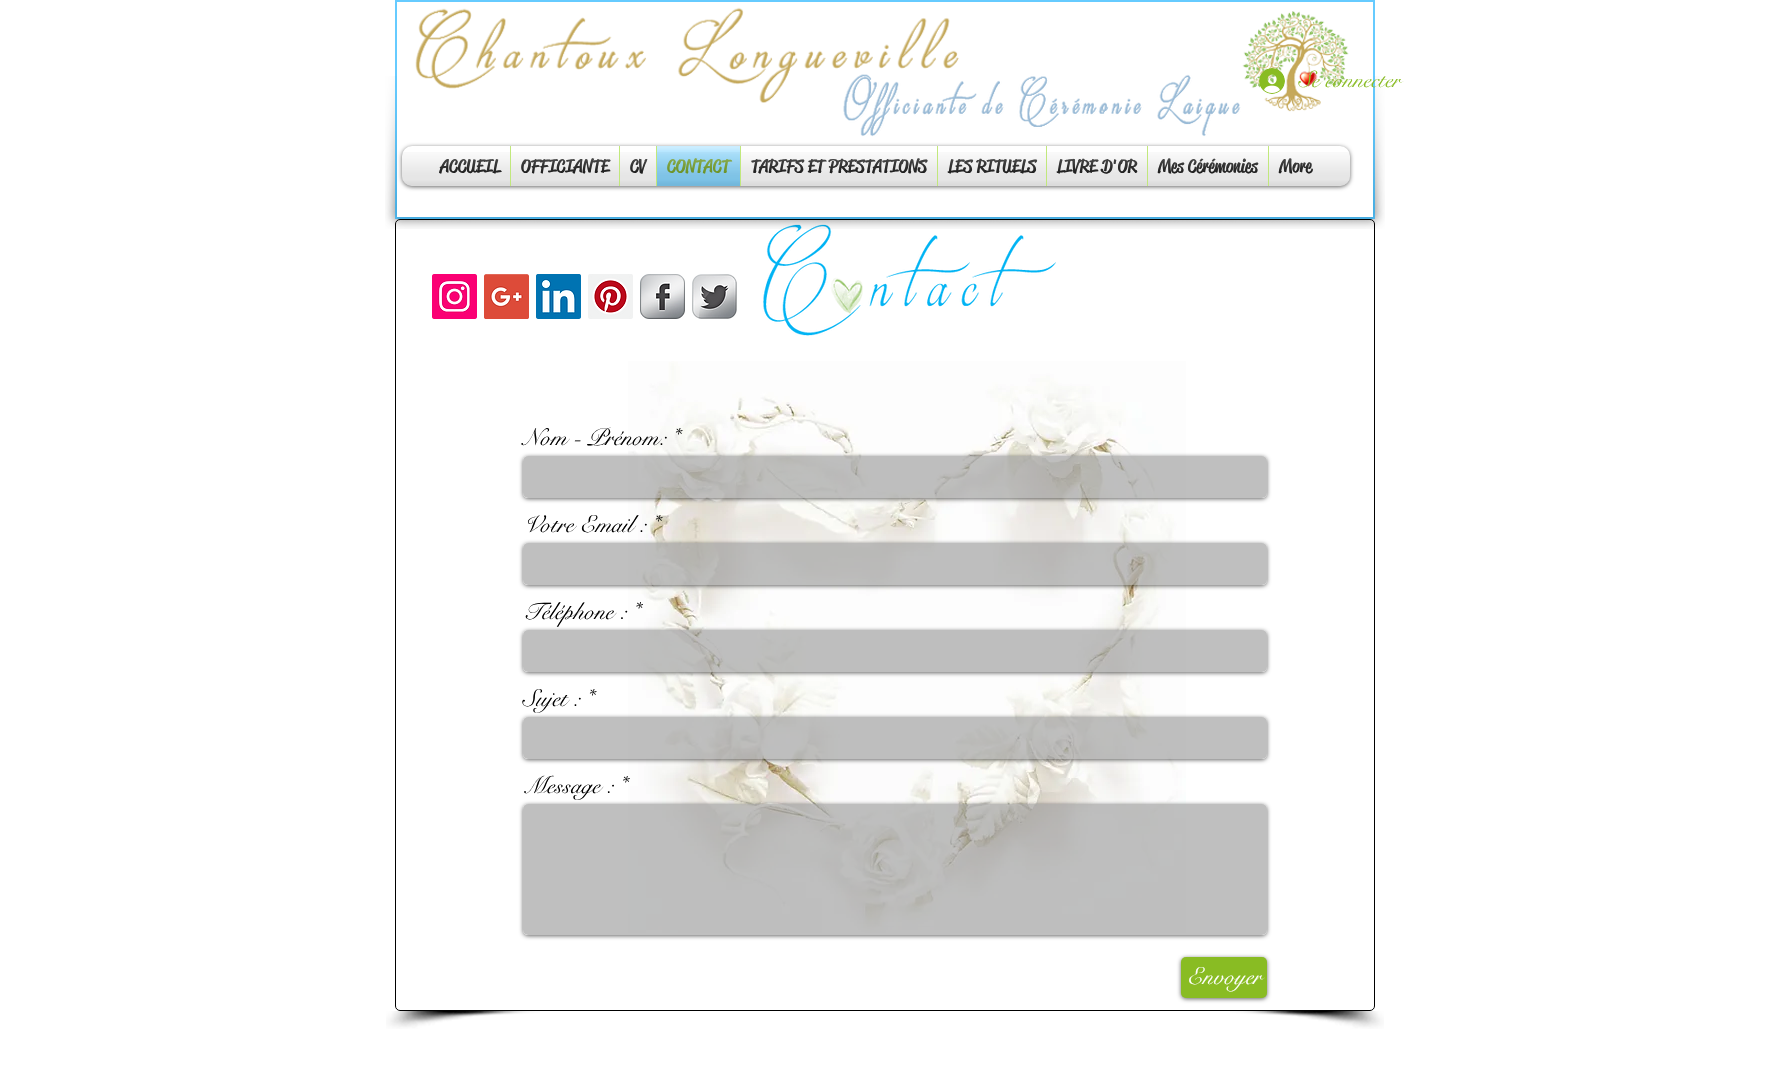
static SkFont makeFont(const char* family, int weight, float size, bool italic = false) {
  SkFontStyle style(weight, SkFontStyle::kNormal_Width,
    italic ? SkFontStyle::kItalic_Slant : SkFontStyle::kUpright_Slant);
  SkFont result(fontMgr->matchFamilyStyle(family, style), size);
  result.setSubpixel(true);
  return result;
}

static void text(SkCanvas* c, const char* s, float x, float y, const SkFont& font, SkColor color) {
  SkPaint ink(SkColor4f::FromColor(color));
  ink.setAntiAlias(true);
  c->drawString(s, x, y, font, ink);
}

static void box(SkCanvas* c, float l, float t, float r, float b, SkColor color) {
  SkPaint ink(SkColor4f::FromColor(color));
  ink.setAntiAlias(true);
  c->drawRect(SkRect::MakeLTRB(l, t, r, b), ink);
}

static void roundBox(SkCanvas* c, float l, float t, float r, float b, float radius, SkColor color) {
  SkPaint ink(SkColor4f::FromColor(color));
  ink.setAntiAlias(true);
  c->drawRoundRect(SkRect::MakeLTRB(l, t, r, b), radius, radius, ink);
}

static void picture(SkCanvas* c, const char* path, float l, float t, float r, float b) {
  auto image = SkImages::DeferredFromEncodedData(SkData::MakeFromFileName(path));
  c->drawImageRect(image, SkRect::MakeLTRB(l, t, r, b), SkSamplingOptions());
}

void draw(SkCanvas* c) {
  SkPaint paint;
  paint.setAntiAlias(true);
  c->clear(0xffffffff);
  paint.setStyle(SkPaint::kStroke_Style);
  paint.setStrokeWidth(1);
  paint.setColor(0xff000000);
  c->drawRoundRect(SkRect::MakeLTRB(395.5f, 219.5f, 1374.5f, 1010.5f), 4.5f, 4.5f, paint);
  picture(c, "img_01.png", 385, 76, 430, 229);
  picture(c, "img_35.png", 762, 224, 1056, 336);
  picture(c, "img_02.png", 430, 217, 1340, 229);
  picture(c, "img_03.png", 1340, 76, 1385, 229);
  box(c, 395, 0, 1375, 219, 0x9900a9ff);
  box(c, 397, 2, 1373, 217, 0xffffffff);
  picture(c, "img_04.png", 415, 7, 959, 103);
  picture(c, "img_05.png", 843, 74, 1241, 137);
  picture(c, "img_06.png", 1242, 11, 1349, 112);
  picture(c, "img_07.png", 1259, 68, 1285, 94);
  SkFont face1 = makeFont("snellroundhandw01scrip", 400, 23);
  text(c, "Se connecter", 1299, 87, face1, 0xff89bc23);
  paint.setStyle(SkPaint::kFill_Style);
  paint.setColor(0x99000000);
  paint.setMaskFilter(SkMaskFilter::MakeBlur(kNormal_SkBlurStyle, 2));
  c->drawRoundRect(SkRect::MakeLTRB(402, 147, 1350, 187), 10, 10, paint);
  paint.setMaskFilter(nullptr);
  roundBox(c, 402, 146, 1350, 186, 10, 0xffffffff);
  picture(c, "img_08.png", 402, 152, 1350, 186);
  box(c, 430, 152, 510, 186, 0xffffffff);
  SkFont face2 = makeFont("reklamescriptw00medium", 500, 18);
  text(c, "ACCUEIL", 440, 172, face2, 0xff000000);
  picture(c, "img_09.png", 439, 158, 502, 174);
  picture(c, "img_10.png", 430, 152, 510, 186);
  box(c, 511, 152, 619, 186, 0xffffffff);
  box(c, 510, 146, 511, 186, 0xffc1e87c);
  text(c, "OFFICIANTE", 521, 172, face2, 0xff000000);
  picture(c, "img_11.png", 521, 158, 611, 174);
  picture(c, "img_12.png", 511, 152, 619, 186);
  box(c, 620, 152, 656, 186, 0xffffffff);
  box(c, 619, 146, 620, 186, 0xffc1e87c);
  text(c, "CV", 630, 172, face2, 0xff000000);
  picture(c, "img_13.png", 630, 158, 648, 174);
  picture(c, "img_14.png", 620, 152, 656, 186);
  box(c, 657, 146, 740, 186, 0xff7fd4ff);
  box(c, 656, 146, 657, 186, 0xffc1e87c);
  text(c, "CONTACT", 667, 172, face2, 0xff61930a);
  picture(c, "img_15.png", 657, 146, 740, 186);
  picture(c, "img_16.png", 657, 152, 740, 186);
  box(c, 741, 152, 937, 186, 0xffffffff);
  box(c, 740, 146, 741, 186, 0xffc1e87c);
  text(c, "TARIFS ET PRESTATIONS", 751, 172, face2, 0xff000000);
  picture(c, "img_17.png", 751, 158, 928, 174);
  picture(c, "img_18.png", 741, 152, 937, 186);
  box(c, 938, 152, 1046, 186, 0xffffffff);
  box(c, 937, 146, 938, 186, 0xffc1e87c);
  text(c, "LES RITUELS", 948, 172, face2, 0xff000000);
  picture(c, "img_19.png", 947, 158, 1038, 174);
  picture(c, "img_20.png", 938, 152, 1046, 186);
  box(c, 1047, 152, 1147, 186, 0xffffffff);
  box(c, 1046, 146, 1047, 186, 0xffc1e87c);
  text(c, "LIVRE D'OR", 1057, 172, face2, 0xff000000);
  picture(c, "img_21.png", 1056, 158, 1138, 174);
  picture(c, "img_22.png", 1047, 152, 1147, 186);
  box(c, 1148, 152, 1268, 186, 0xffffffff);
  box(c, 1147, 146, 1148, 186, 0xffc1e87c);
  text(c, "Mes Cérémonies", 1158, 172, face2, 0xff000000);
  picture(c, "img_23.png", 1158, 158, 1259, 174);
  picture(c, "img_24.png", 1148, 152, 1268, 186);
  box(c, 1269, 152, 1322, 186, 0xffffffff);
  box(c, 1268, 146, 1269, 186, 0xffc1e87c);
  text(c, "More", 1279, 172, face2, 0xff000000);
  picture(c, "img_25.png", 1279, 158, 1313, 174);
  picture(c, "img_26.png", 1269, 152, 1322, 186);
  picture(c, "img_27.png", 386, 1011, 540, 1029);
  picture(c, "img_28.png", 1230, 1011, 1384, 1029);
  picture(c, "img_29.png", 432, 274, 477, 319);
  picture(c, "img_30.png", 484, 274, 529, 319);
  picture(c, "img_31.png", 536, 274, 581, 319);
  picture(c, "img_32.png", 588, 274, 633, 319);
  picture(c, "img_33.png", 640, 274, 685, 319);
  picture(c, "img_34.png", 692, 274, 737, 319);
  picture(c, "img_36.png", 628, 361, 1186, 933);
  SkFont face3 = makeFont("snellroundhandw01scrip", 400, 24);
  text(c, "Nom - Prénom: *", 523, 445, face3, 0xff000000);
  c->save();
  c->clipPath(SkPathBuilder(SkPathFillType::kEvenOdd).moveTo(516, 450).lineTo(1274, 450).lineTo(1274, 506).lineTo(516, 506).close().moveTo(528, 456).lineTo(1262, 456).cubicTo(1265, 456, 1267, 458, 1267, 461).lineTo(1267, 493).cubicTo(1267, 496, 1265, 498, 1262, 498).lineTo(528, 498).cubicTo(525, 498, 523, 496, 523, 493).lineTo(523, 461).cubicTo(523, 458, 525, 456, 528, 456).close().detach(), true);
  paint.setMaskFilter(SkMaskFilter::MakeBlur(kNormal_SkBlurStyle, 2));
  c->drawRoundRect(SkRect::MakeLTRB(523, 457, 1267, 499), 5, 5, paint);
  paint.setMaskFilter(nullptr);
  c->restore();
  roundBox(c, 523, 456, 1267, 498, 5, 0xa19a9a9a);
  text(c, "Votre Email : *", 523, 532, face3, 0xff000000);
  c->save();
  c->clipPath(SkPathBuilder(SkPathFillType::kEvenOdd).moveTo(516, 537).lineTo(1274, 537).lineTo(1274, 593).lineTo(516, 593).close().moveTo(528, 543).lineTo(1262, 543).cubicTo(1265, 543, 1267, 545, 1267, 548).lineTo(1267, 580).cubicTo(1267, 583, 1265, 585, 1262, 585).lineTo(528, 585).cubicTo(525, 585, 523, 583, 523, 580).lineTo(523, 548).cubicTo(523, 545, 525, 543, 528, 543).close().detach(), true);
  paint.setMaskFilter(SkMaskFilter::MakeBlur(kNormal_SkBlurStyle, 2));
  c->drawRoundRect(SkRect::MakeLTRB(523, 544, 1267, 586), 5, 5, paint);
  paint.setMaskFilter(nullptr);
  c->restore();
  roundBox(c, 523, 543, 1267, 585, 5, 0xa19a9a9a);
  text(c, "Téléphone : *", 523, 619, face3, 0xff000000);
  c->save();
  c->clipPath(SkPathBuilder(SkPathFillType::kEvenOdd).moveTo(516, 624).lineTo(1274, 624).lineTo(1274, 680).lineTo(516, 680).close().moveTo(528, 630).lineTo(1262, 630).cubicTo(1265, 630, 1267, 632, 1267, 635).lineTo(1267, 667).cubicTo(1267, 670, 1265, 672, 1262, 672).lineTo(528, 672).cubicTo(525, 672, 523, 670, 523, 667).lineTo(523, 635).cubicTo(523, 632, 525, 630, 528, 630).close().detach(), true);
  paint.setMaskFilter(SkMaskFilter::MakeBlur(kNormal_SkBlurStyle, 2));
  c->drawRoundRect(SkRect::MakeLTRB(523, 631, 1267, 673), 5, 5, paint);
  paint.setMaskFilter(nullptr);
  c->restore();
  roundBox(c, 523, 630, 1267, 672, 5, 0xa19a9a9a);
  text(c, "Sujet : *", 523, 706, face3, 0xff000000);
  c->save();
  c->clipPath(SkPathBuilder(SkPathFillType::kEvenOdd).moveTo(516, 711).lineTo(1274, 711).lineTo(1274, 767).lineTo(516, 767).close().moveTo(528, 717).lineTo(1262, 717).cubicTo(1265, 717, 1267, 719, 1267, 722).lineTo(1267, 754).cubicTo(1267, 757, 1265, 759, 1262, 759).lineTo(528, 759).cubicTo(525, 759, 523, 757, 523, 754).lineTo(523, 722).cubicTo(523, 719, 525, 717, 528, 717).close().detach(), true);
  paint.setMaskFilter(SkMaskFilter::MakeBlur(kNormal_SkBlurStyle, 2));
  c->drawRoundRect(SkRect::MakeLTRB(523, 718, 1267, 760), 5, 5, paint);
  paint.setMaskFilter(nullptr);
  c->restore();
  roundBox(c, 523, 717, 1267, 759, 5, 0xa19a9a9a);
  text(c, "Message : *", 523, 793, face3, 0xff000000);
  c->save();
  c->clipPath(SkPathBuilder(SkPathFillType::kEvenOdd).moveTo(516, 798).lineTo(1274, 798).lineTo(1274, 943).lineTo(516, 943).close().moveTo(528, 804).lineTo(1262, 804).cubicTo(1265, 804, 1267, 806, 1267, 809).lineTo(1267, 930).cubicTo(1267, 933, 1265, 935, 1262, 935).lineTo(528, 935).cubicTo(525, 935, 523, 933, 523, 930).lineTo(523, 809).cubicTo(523, 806, 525, 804, 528, 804).close().detach(), true);
  paint.setMaskFilter(SkMaskFilter::MakeBlur(kNormal_SkBlurStyle, 2));
  c->drawRoundRect(SkRect::MakeLTRB(523, 805, 1267, 936), 5, 5, paint);
  paint.setMaskFilter(nullptr);
  c->restore();
  roundBox(c, 523, 804, 1267, 935, 5, 0xa19a9a9a);
  paint.setMaskFilter(SkMaskFilter::MakeBlur(kNormal_SkBlurStyle, 2));
  c->drawRoundRect(SkRect::MakeLTRB(1181, 958, 1267, 999), 5, 5, paint);
  paint.setMaskFilter(nullptr);
  roundBox(c, 1181, 957, 1267, 998, 5, 0xff89bc23);
  text(c, "Envoyer", 1187, 984, face3, 0xffffffff);
}
